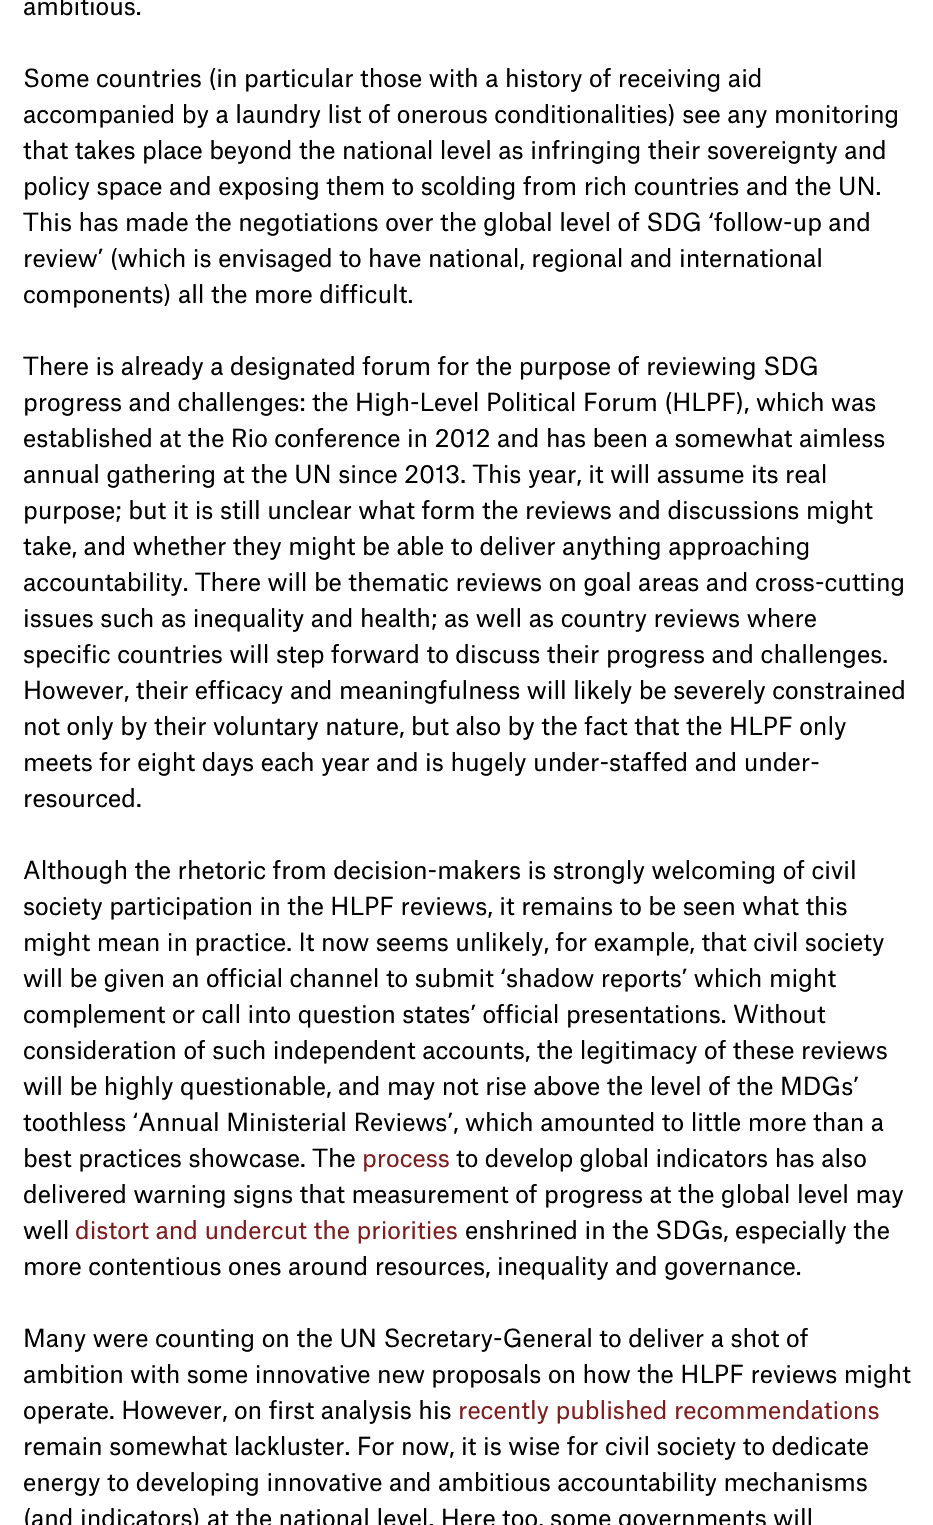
static SkFont makeFont(const char* family, int weight, float size, bool italic = false) {
  SkFontStyle style(weight, SkFontStyle::kNormal_Width,
    italic ? SkFontStyle::kItalic_Slant : SkFontStyle::kUpright_Slant);
  SkFont result(fontMgr->matchFamilyStyle(family, style), size);
  result.setSubpixel(true);
  return result;
}

static void text(SkCanvas* c, const char* s, float x, float y, const SkFont& font, SkColor color) {
  SkPaint ink(SkColor4f::FromColor(color));
  ink.setAntiAlias(true);
  c->drawString(s, x, y, font, ink);
}

void draw(SkCanvas* c) {
  SkPaint paint;
  paint.setAntiAlias(true);
  c->clear(0xffffffff);
  SkFont face1 = makeFont("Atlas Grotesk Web", 400, 24);
  text(c, "ambitious.", 23, 15, face1, 0xff000000);
  text(c, "Some countries (in particular those with a history of receiving aid", 23, 87, face1, 0xff000000);
  text(c, "accompanied by a laundry list of onerous conditionalities) see any monitoring", 23, 123, face1, 0xff000000);
  text(c, "that takes place beyond the national level as infringing their sovereignty and", 23, 159, face1, 0xff000000);
  text(c, "policy space and exposing them to scolding from rich countries and the UN.", 23, 195, face1, 0xff000000);
  text(c, "This has made the negotiations over the global level of SDG ‘follow-up and", 23, 231, face1, 0xff000000);
  text(c, "review’ (which is envisaged to have national, regional and international", 23, 267, face1, 0xff000000);
  text(c, "components) all the more difficult.", 23, 303, face1, 0xff000000);
  text(c, "There is already a designated forum for the purpose of reviewing SDG", 23, 375, face1, 0xff000000);
  text(c, "progress and challenges: the High-Level Political Forum (HLPF), which was", 23, 411, face1, 0xff000000);
  text(c, "established at the Rio conference in 2012 and has been a somewhat aimless", 23, 447, face1, 0xff000000);
  text(c, "annual gathering at the UN since 2013. This year, it will assume its real", 23, 483, face1, 0xff000000);
  text(c, "purpose; but it is still unclear what form the reviews and discussions might", 23, 519, face1, 0xff000000);
  text(c, "take, and whether they might be able to deliver anything approaching", 23, 555, face1, 0xff000000);
  text(c, "accountability. There will be thematic reviews on goal areas and cross-cutting", 23, 591, face1, 0xff000000);
  text(c, "issues such as inequality and health; as well as country reviews where", 23, 627, face1, 0xff000000);
  text(c, "specific countries will step forward to discuss their progress and challenges.", 23, 663, face1, 0xff000000);
  text(c, "However, their efficacy and meaningfulness will likely be severely constrained", 23, 699, face1, 0xff000000);
  text(c, "not only by their voluntary nature, but also by the fact that the HLPF only", 23, 735, face1, 0xff000000);
  text(c, "meets for eight days each year and is hugely under-staffed and under-", 23, 771, face1, 0xff000000);
  text(c, "resourced.", 23, 807, face1, 0xff000000);
  text(c, "Although the rhetoric from decision-makers is strongly welcoming of civil", 23, 879, face1, 0xff000000);
  text(c, "society participation in the HLPF reviews, it remains to be seen what this", 23, 915, face1, 0xff000000);
  text(c, "might mean in practice. It now seems unlikely, for example, that civil society", 23, 951, face1, 0xff000000);
  text(c, "will be given an official channel to submit ‘shadow reports’ which might", 23, 987, face1, 0xff000000);
  text(c, "complement or call into question states’ official presentations. Without", 23, 1023, face1, 0xff000000);
  text(c, "consideration of such independent accounts, the legitimacy of these reviews", 23, 1059, face1, 0xff000000);
  text(c, "will be highly questionable, and may not rise above the level of the MDGs’", 23, 1095, face1, 0xff000000);
  text(c, "toothless ‘Annual Ministerial Reviews’, which amounted to little more than a", 23, 1131, face1, 0xff000000);
  text(c, "best practices showcase. The", 23, 1167, face1, 0xff000000);
  text(c, "process", 362, 1167, face1, 0xff7f1d1d);
  text(c, "to develop global indicators has also", 456, 1167, face1, 0xff000000);
  text(c, "delivered warning signs that measurement of progress at the global level may", 23, 1203, face1, 0xff000000);
  text(c, "well", 23, 1239, face1, 0xff000000);
  text(c, "distort and undercut the priorities", 75, 1239, face1, 0xff7f1d1d);
  text(c, "enshrined in the SDGs, especially the", 465, 1239, face1, 0xff000000);
  text(c, "more contentious ones around resources, inequality and governance.", 23, 1275, face1, 0xff000000);
  text(c, "Many were counting on the UN Secretary-General to deliver a shot of", 23, 1347, face1, 0xff000000);
  text(c, "ambition with some innovative new proposals on how the HLPF reviews might", 23, 1383, face1, 0xff000000);
  text(c, "operate. However, on first analysis his", 23, 1419, face1, 0xff000000);
  text(c, "recently published recommendations", 458, 1419, face1, 0xff7f1d1d);
  text(c, "remain somewhat lackluster. For now, it is wise for civil society to dedicate", 23, 1455, face1, 0xff000000);
  text(c, "energy to developing innovative and ambitious accountability mechanisms", 23, 1491, face1, 0xff000000);
  text(c, "(and indicators) at the national level. Here too, some governments will", 23, 1527, face1, 0xff000000);
}
